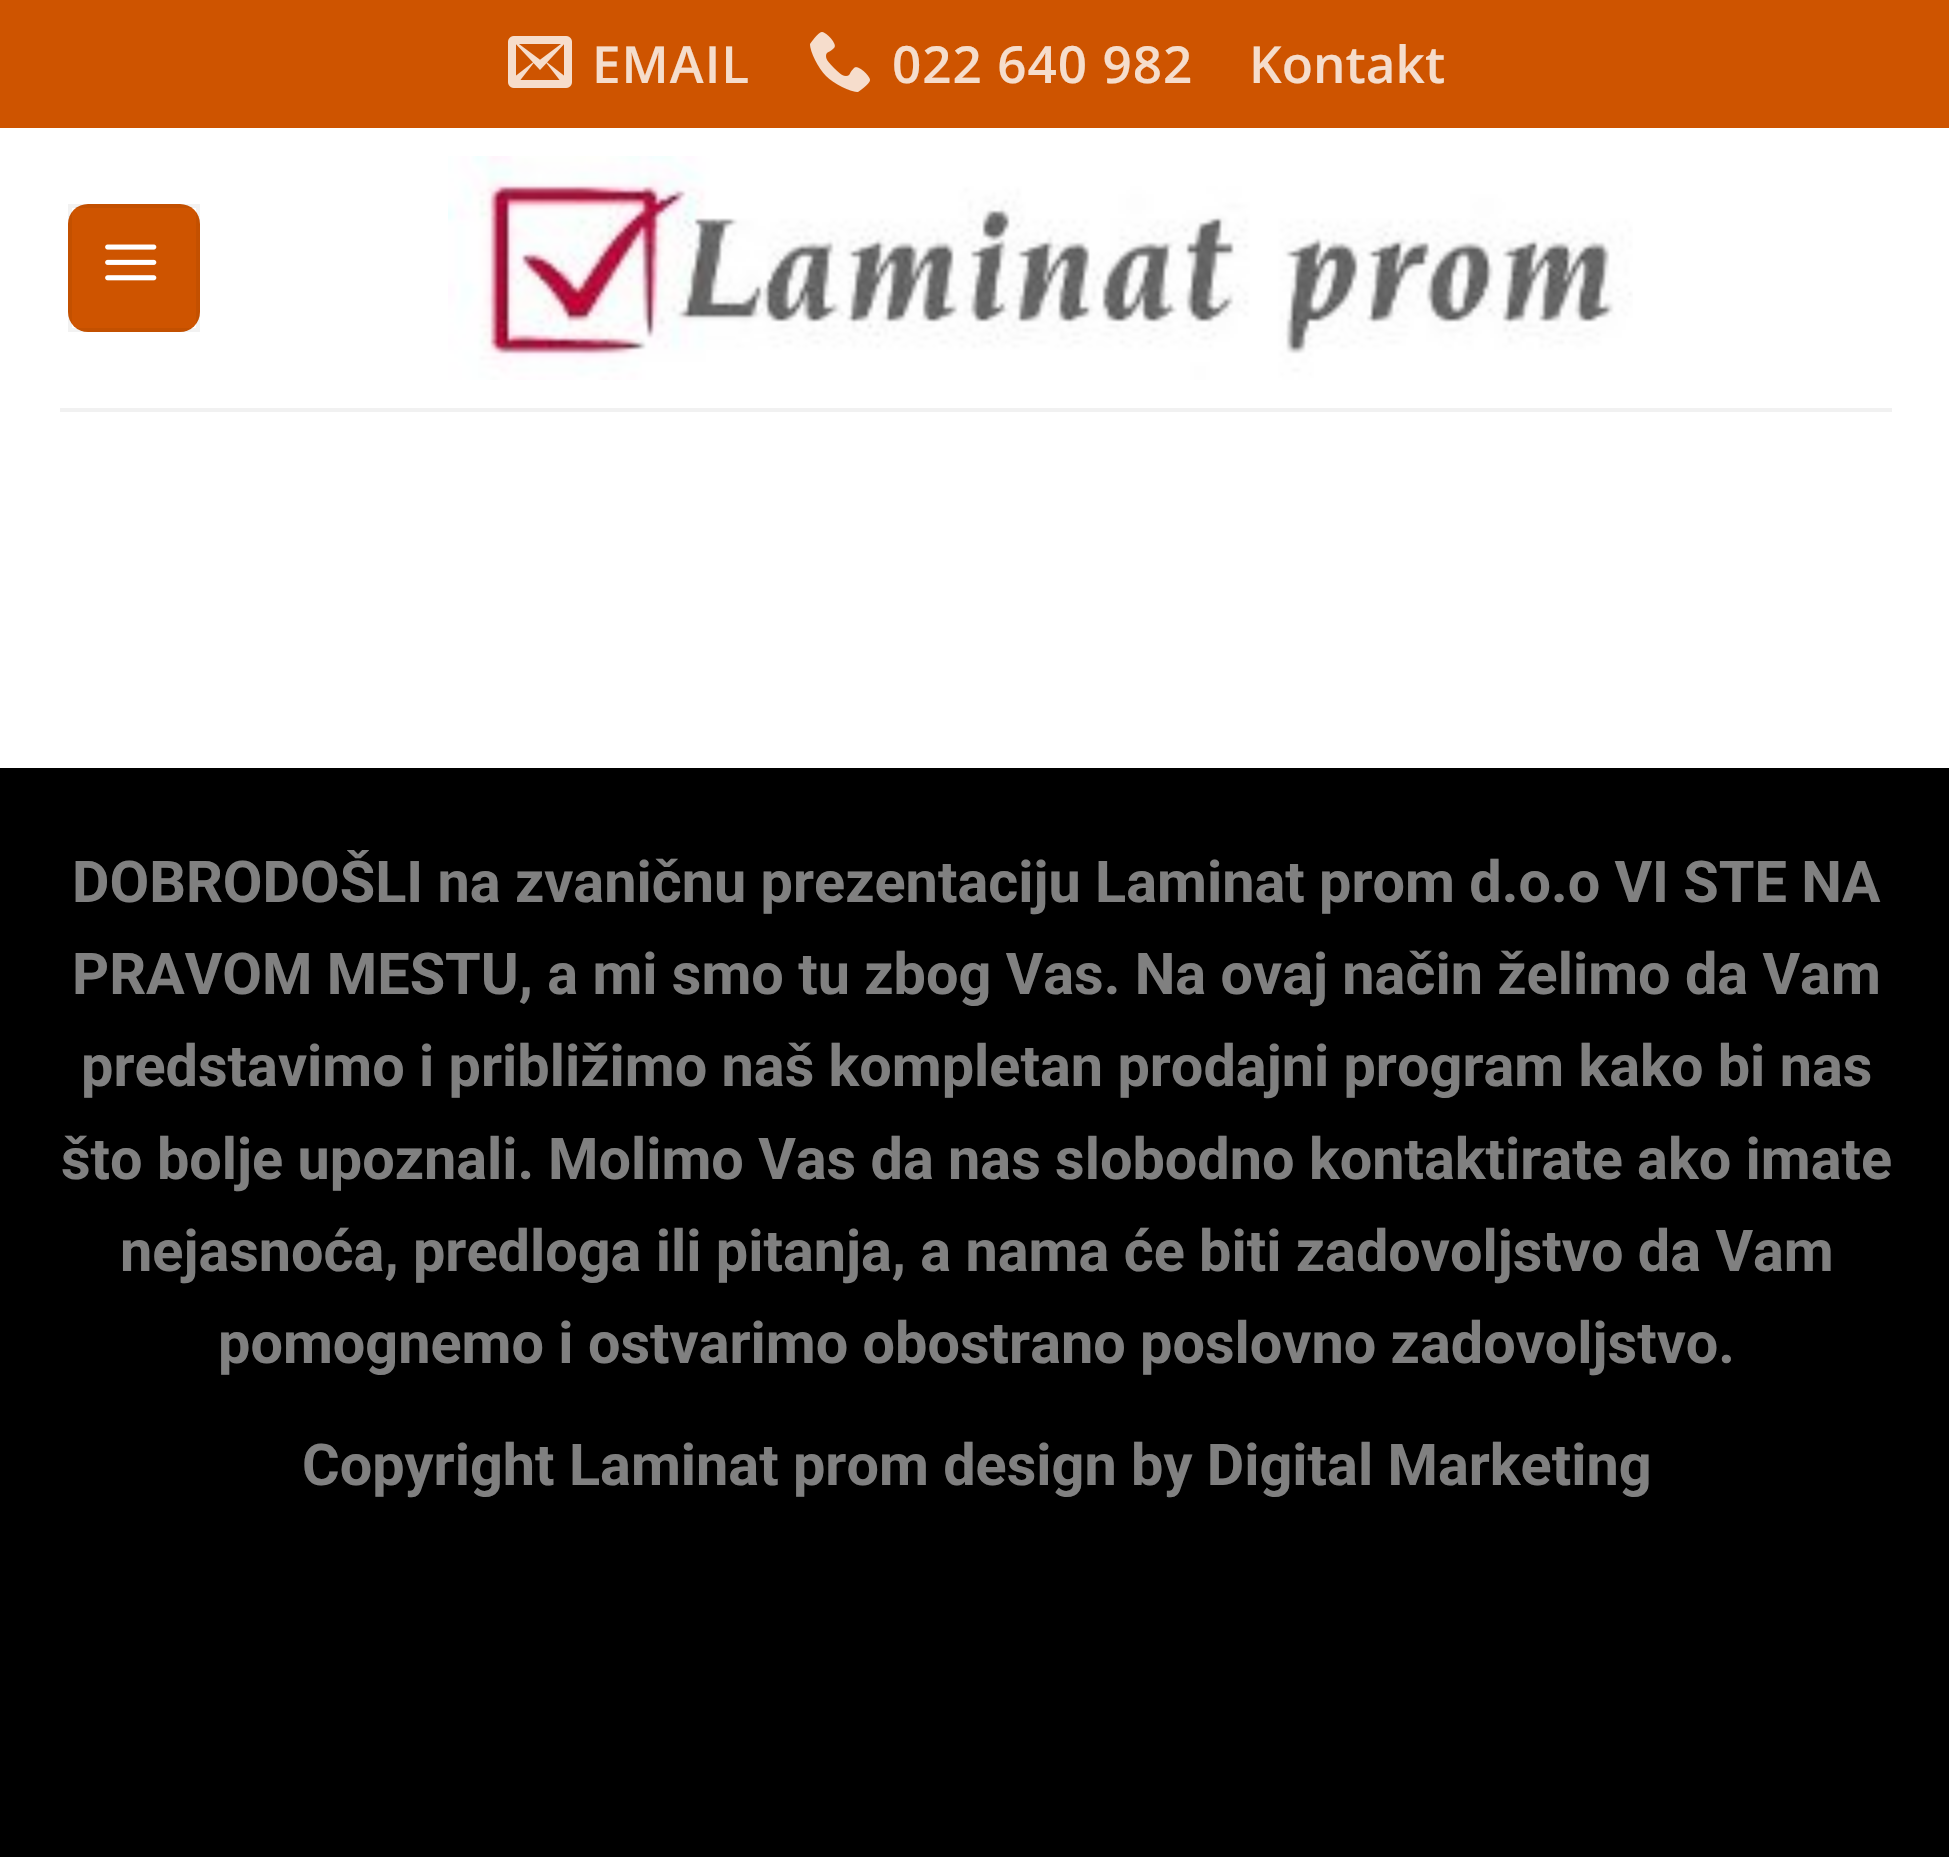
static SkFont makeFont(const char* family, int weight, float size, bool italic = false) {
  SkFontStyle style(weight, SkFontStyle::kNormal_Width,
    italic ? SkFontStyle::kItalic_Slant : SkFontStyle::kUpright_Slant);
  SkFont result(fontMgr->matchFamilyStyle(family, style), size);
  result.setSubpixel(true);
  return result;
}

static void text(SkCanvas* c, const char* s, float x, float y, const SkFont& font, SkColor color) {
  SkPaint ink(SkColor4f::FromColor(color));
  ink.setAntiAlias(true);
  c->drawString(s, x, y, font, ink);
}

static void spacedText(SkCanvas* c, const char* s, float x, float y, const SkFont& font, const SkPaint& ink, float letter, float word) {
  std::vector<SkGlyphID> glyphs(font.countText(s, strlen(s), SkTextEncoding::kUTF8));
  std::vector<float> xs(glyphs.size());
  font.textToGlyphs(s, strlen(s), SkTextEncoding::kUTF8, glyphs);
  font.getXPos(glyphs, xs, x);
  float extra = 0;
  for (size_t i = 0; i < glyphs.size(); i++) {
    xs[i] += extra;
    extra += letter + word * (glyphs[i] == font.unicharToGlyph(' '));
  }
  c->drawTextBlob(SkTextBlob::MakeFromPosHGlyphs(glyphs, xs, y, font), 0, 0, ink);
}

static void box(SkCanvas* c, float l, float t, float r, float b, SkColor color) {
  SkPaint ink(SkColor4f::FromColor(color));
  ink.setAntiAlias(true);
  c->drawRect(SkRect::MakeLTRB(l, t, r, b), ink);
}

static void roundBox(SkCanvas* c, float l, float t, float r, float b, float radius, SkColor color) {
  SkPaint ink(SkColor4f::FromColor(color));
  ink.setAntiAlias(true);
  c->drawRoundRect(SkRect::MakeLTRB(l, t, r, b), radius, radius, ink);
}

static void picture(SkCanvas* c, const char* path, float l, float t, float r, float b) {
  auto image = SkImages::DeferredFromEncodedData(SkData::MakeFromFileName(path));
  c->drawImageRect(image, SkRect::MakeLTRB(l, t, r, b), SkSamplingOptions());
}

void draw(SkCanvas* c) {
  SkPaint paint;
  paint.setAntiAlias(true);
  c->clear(0xff000000);
  box(c, 0, 128, 1949, 768, 0xffffffff);
  box(c, 0, 0, 1949, 128, 0xffce5400);
  picture(c, "img_01.png", 508, 36, 572, 88);
  SkFont face1 = makeFont("Open Sans", 600, 51.25f);
  paint.setColor(0xfff5ddcc);
  spacedText(c, "EMAIL", 592, 83, face1, paint, 1, 0);
  picture(c, "img_02.png", 810, 32, 870, 92);
  spacedText(c, "022 640 982", 892, 83, face1, paint, 1, 0);
  text(c, "Kontakt", 1249, 83, face1, 0xfff5ddcc);
  roundBox(c, 68, 204, 200, 332, 20, 0xffce5400);
  paint.setStyle(SkPaint::kStroke_Style);
  paint.setStrokeWidth(4);
  paint.setColor(0x0d000000);
  c->drawRect(SkRect::MakeLTRB(70, 206, 198, 330), paint);
  picture(c, "img_03.png", 105, 244, 157, 281);
  picture(c, "img_04.png", 448, 156, 1633, 380);
  box(c, 60, 408, 1892, 412, 0xfff1f1f1);
  SkFont face2 = makeFont("Roboto", 700, 57.6f);
  text(c, "DOBRODOŠLI na zvaničnu prezentaciju Laminat prom d.o.o VI STE NA", 72, 902, face2, 0xff808080);
  text(c, "PRAVOM MESTU, a mi smo tu zbog Vas. Na ovaj način želimo da Vam", 72, 994, face2, 0xff808080);
  text(c, "predstavimo i približimo naš kompletan prodajni program kako bi nas", 81, 1086, face2, 0xff808080);
  text(c, "što bolje upoznali.", 61, 1179, face2, 0xff808080);
  text(c, "Molimo Vas da nas slobodno kontaktirate ako imate", 548, 1179, face2, 0xff808080);
  text(c, "nejasnoća, predloga ili pitanja, a nama će biti zadovoljstvo da Vam", 120, 1271, face2, 0xff808080);
  text(c, "pomognemo i ostvarimo obostrano poslovno zadovoljstvo.", 218, 1363, face2, 0xff808080);
  text(c, "Copyright Laminat prom design by Digital Marketing", 302, 1485, face2, 0xff808080);
}
